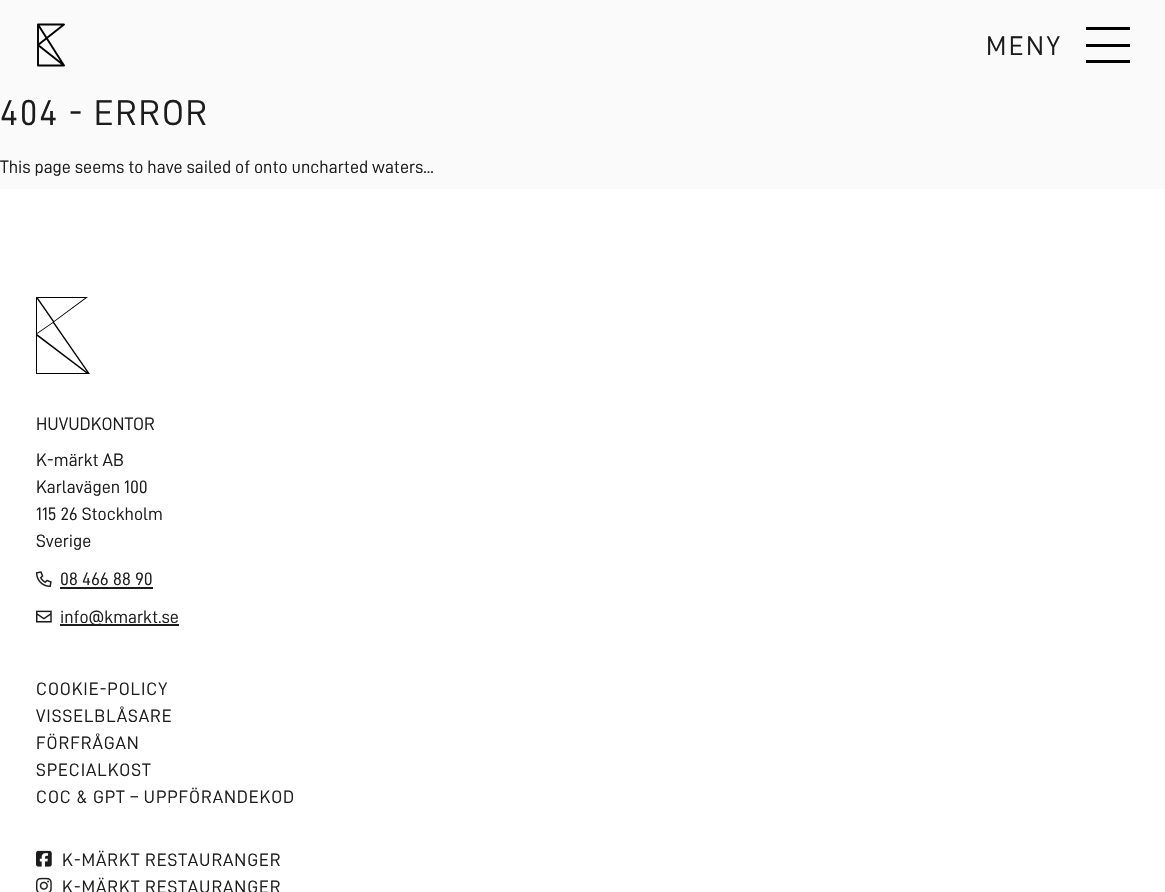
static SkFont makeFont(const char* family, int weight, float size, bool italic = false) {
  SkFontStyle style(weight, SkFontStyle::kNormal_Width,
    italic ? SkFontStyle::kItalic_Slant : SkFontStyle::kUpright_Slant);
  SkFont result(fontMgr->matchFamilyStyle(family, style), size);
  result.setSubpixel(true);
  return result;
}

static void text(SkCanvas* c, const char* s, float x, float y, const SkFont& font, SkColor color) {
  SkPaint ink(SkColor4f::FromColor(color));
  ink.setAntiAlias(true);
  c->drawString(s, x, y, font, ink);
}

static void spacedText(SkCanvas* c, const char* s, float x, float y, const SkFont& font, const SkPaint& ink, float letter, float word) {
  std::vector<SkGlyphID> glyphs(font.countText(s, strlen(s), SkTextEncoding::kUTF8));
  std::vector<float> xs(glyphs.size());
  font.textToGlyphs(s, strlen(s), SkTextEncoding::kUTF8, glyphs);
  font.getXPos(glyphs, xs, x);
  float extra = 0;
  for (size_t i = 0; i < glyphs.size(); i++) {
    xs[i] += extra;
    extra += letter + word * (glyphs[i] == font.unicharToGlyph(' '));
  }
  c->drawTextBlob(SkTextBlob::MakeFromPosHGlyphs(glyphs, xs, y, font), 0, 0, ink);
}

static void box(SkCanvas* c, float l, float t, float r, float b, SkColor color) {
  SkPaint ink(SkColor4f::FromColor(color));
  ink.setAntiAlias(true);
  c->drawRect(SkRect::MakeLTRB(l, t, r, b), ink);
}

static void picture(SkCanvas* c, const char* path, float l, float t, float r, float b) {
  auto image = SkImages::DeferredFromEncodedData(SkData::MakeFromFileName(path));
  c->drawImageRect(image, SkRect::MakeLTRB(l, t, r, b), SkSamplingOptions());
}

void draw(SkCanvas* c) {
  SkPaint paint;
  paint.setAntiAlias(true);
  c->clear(0xfffafafa);
  paint.setStyle(SkPaint::kStroke_Style);
  paint.setStrokeWidth(1.9f);
  paint.setStrokeCap(SkPaint::kRound_Cap);
  paint.setStrokeJoin(SkPaint::kRound_Join);
  paint.setColor(0xff000000);
  c->drawPath(SkPathBuilder().moveTo(38, 24.5f).lineTo(38, 65.5f).lineTo(64, 65.5f).lineTo(38, 45).lineTo(64, 24.5f).close().moveTo(38, 24.5f).lineTo(64, 65.5f).detach(), paint);
  box(c, 1086, 27, 1130, 30, 0xff000000);
  SkFont face1 = makeFont("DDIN", 400, 27);
  paint.setStyle(SkPaint::kFill_Style);
  paint.setColor(0xff1c1c1c);
  spacedText(c, "MENY", 986, 55, face1, paint, 2.5f, 0);
  box(c, 1086, 44, 1130, 47, 0xff000000);
  box(c, 1086, 60, 1130, 63, 0xff000000);
  SkFont face2 = makeFont("DDIN", 400, 36);
  spacedText(c, "404 - ERROR", 0, 125, face2, paint, 1.75f, 0);
  SkFont face3 = makeFont("DDIN", 400, 18);
  text(c, "This page seems to have sailed of onto uncharted waters...", 0, 173, face3, 0xff1c1c1c);
  box(c, 0, 189, 1165, 892, 0xffffffff);
  paint.setColor(0xff000000);
  c->drawPath(SkPathBuilder().moveTo(54, 322).lineTo(88, 297).lineTo(36, 297).lineTo(36, 374).lineTo(90, 374).close().moveTo(87, 372).lineTo(37, 334).lineTo(53, 323).close().moveTo(85, 298).lineTo(54, 321).lineTo(38, 298).close().moveTo(37, 299).lineTo(53, 322).lineTo(37, 333).close().moveTo(37, 373).lineTo(37, 336).lineTo(86, 373).close().detach(), paint);
  text(c, "HUVUDKONTOR", 36, 430, face3, 0xff1c1c1c);
  text(c, "K-märkt AB", 36, 466, face3, 0xff1c1c1c);
  text(c, "Karlavägen 100", 36, 493, face3, 0xff1c1c1c);
  text(c, "115 26 Stockholm", 36, 520, face3, 0xff1c1c1c);
  text(c, "Sverige", 36, 547, face3, 0xff1c1c1c);
  picture(c, "img_01.png", 36, 571, 52, 587);
  text(c, "08 466 88 90", 60, 585, face3, 0xff1c1c1c);
  box(c, 60, 587, 153, 589, 0xff1c1c1c);
  picture(c, "img_02.png", 36, 610, 52, 623);
  box(c, 60, 624, 179, 626, 0xff1c1c1c);
  text(c, "info@kmarkt.se", 60, 623, face3, 0xff1c1c1c);
  paint.setColor(0xff1c1c1c);
  spacedText(c, "COOKIE-POLICY", 36, 695, face3, paint, 0.9f, 0);
  spacedText(c, "VISSELBLÅSARE", 36, 722, face3, paint, 0.9f, 0);
  spacedText(c, "FÖRFRÅGAN", 36, 749, face3, paint, 0.9f, 0);
  spacedText(c, "SPECIALKOST", 36, 776, face3, paint, 0.9f, 0);
  spacedText(c, "COC & GPT – UPPFÖRANDEKOD", 36, 803, face3, paint, 0.9f, 0);
  picture(c, "img_03.png", 36, 850, 52, 867);
  spacedText(c, "K-MÄRKT RESTAURANGER", 62, 866, face3, paint, 0.9f, 0);
  picture(c, "img_04.png", 36, 877, 52, 892);
  spacedText(c, "K-MÄRKT RESTAURANGER", 62, 893, face3, paint, 0.9f, 0);
}
